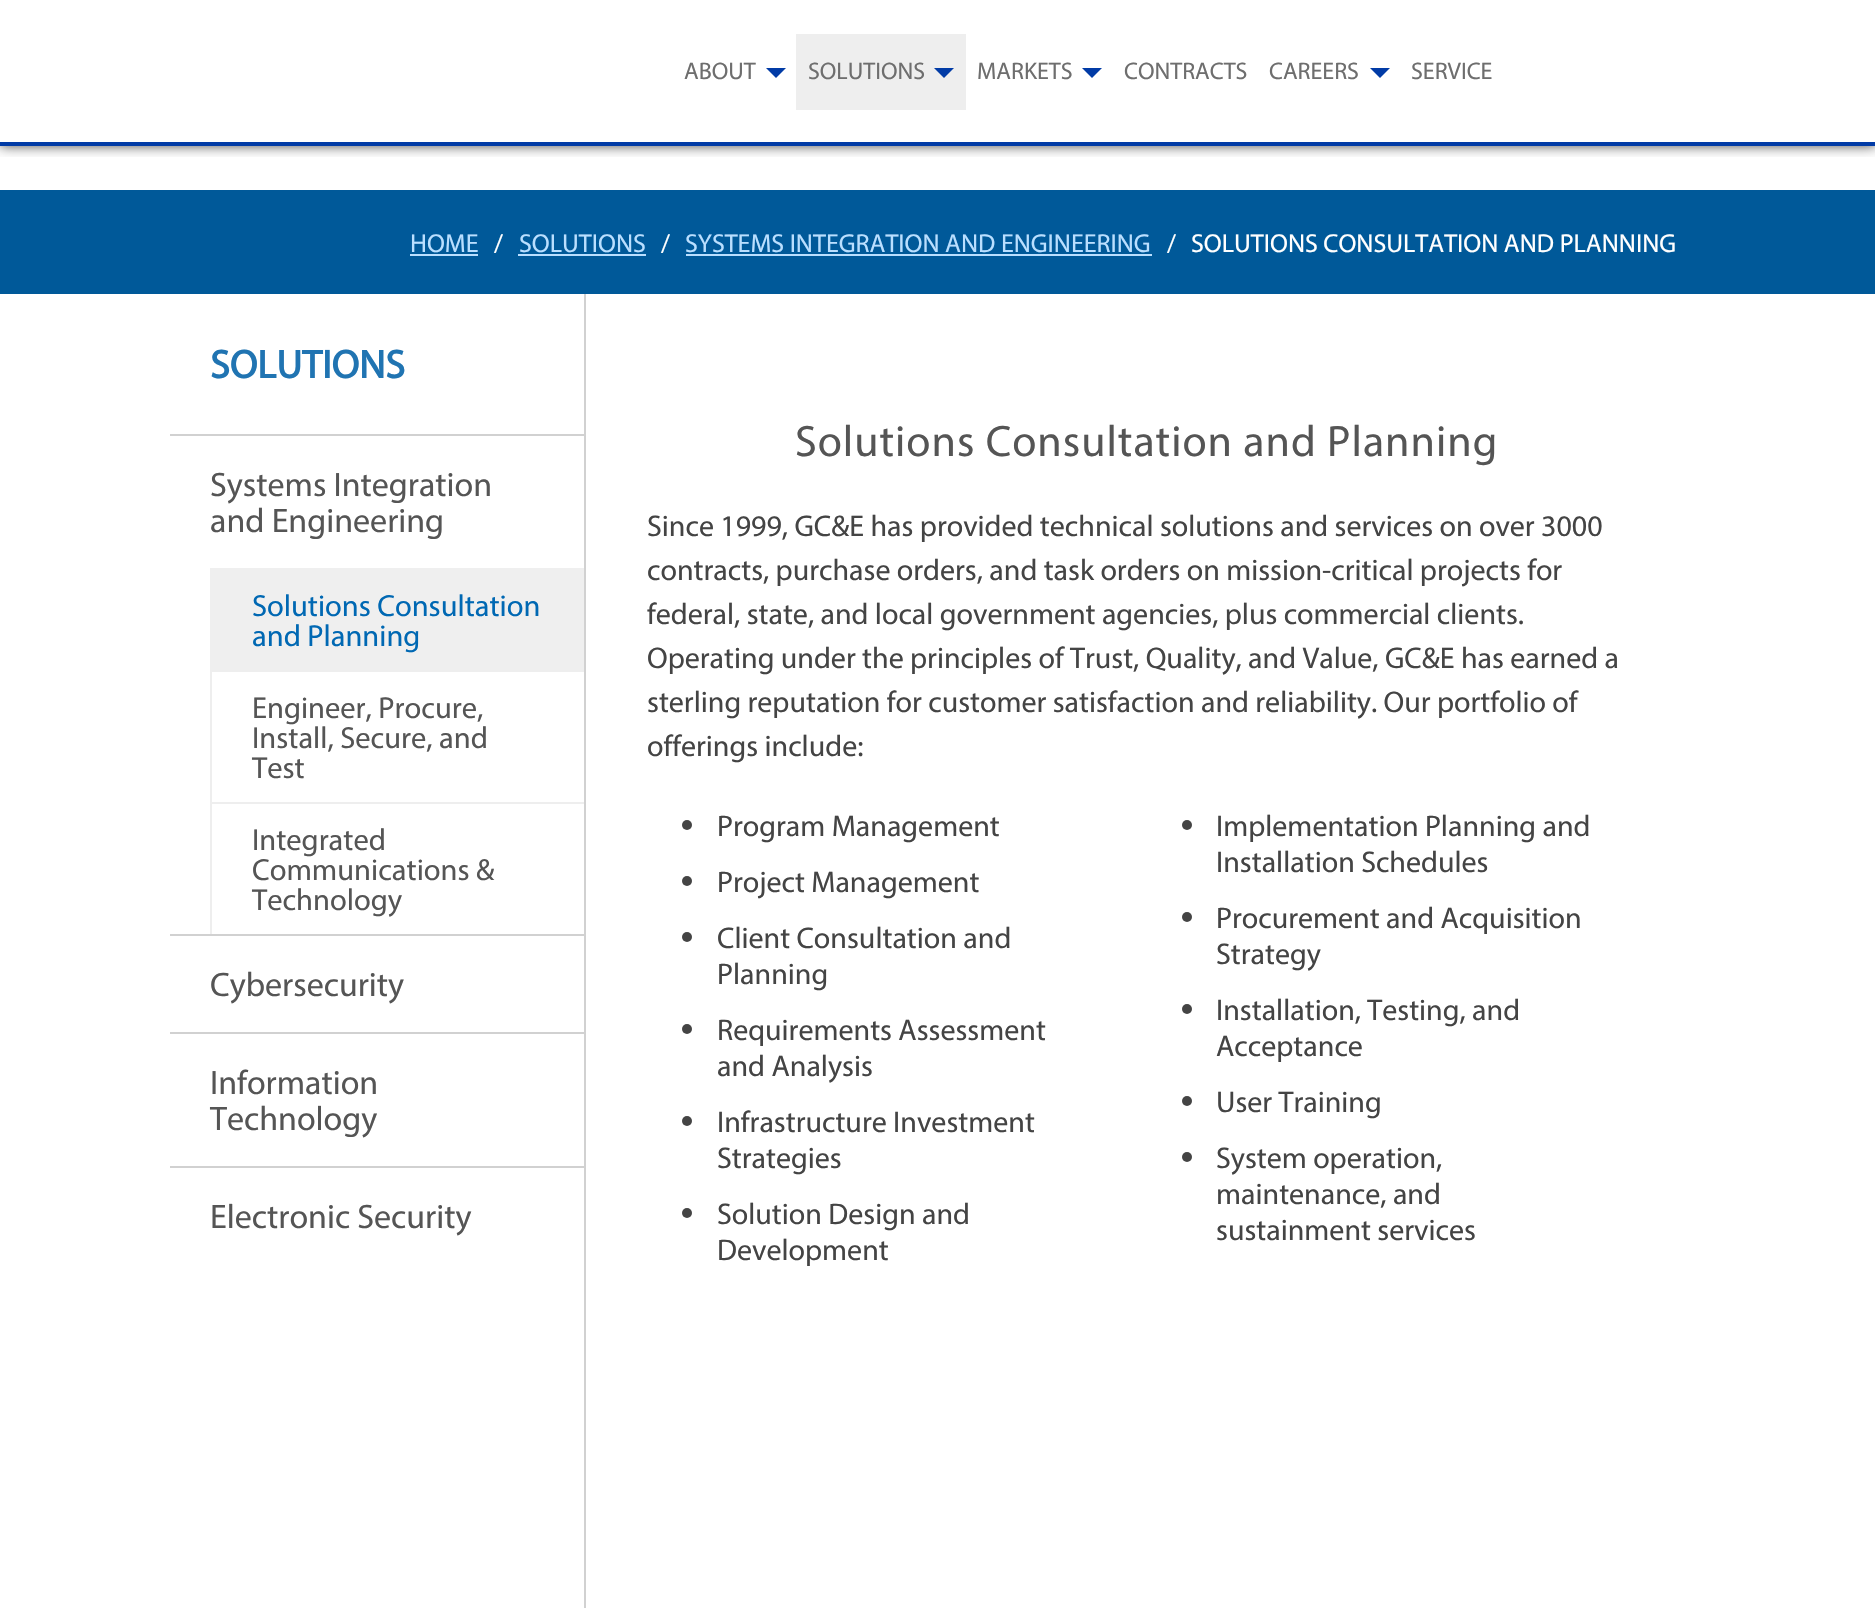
static SkFont makeFont(const char* family, int weight, float size, bool italic = false) {
  SkFontStyle style(weight, SkFontStyle::kNormal_Width,
    italic ? SkFontStyle::kItalic_Slant : SkFontStyle::kUpright_Slant);
  SkFont result(fontMgr->matchFamilyStyle(family, style), size);
  result.setSubpixel(true);
  return result;
}

static void text(SkCanvas* c, const char* s, float x, float y, const SkFont& font, SkColor color) {
  SkPaint ink(SkColor4f::FromColor(color));
  ink.setAntiAlias(true);
  c->drawString(s, x, y, font, ink);
}

static void spacedText(SkCanvas* c, const char* s, float x, float y, const SkFont& font, const SkPaint& ink, float letter, float word) {
  std::vector<SkGlyphID> glyphs(font.countText(s, strlen(s), SkTextEncoding::kUTF8));
  std::vector<float> xs(glyphs.size());
  font.textToGlyphs(s, strlen(s), SkTextEncoding::kUTF8, glyphs);
  font.getXPos(glyphs, xs, x);
  float extra = 0;
  for (size_t i = 0; i < glyphs.size(); i++) {
    xs[i] += extra;
    extra += letter + word * (glyphs[i] == font.unicharToGlyph(' '));
  }
  c->drawTextBlob(SkTextBlob::MakeFromPosHGlyphs(glyphs, xs, y, font), 0, 0, ink);
}

static void box(SkCanvas* c, float l, float t, float r, float b, SkColor color) {
  SkPaint ink(SkColor4f::FromColor(color));
  ink.setAntiAlias(true);
  c->drawRect(SkRect::MakeLTRB(l, t, r, b), ink);
}

void draw(SkCanvas* c) {
  SkPaint paint;
  paint.setAntiAlias(true);
  c->clear(0xffffffff);
  c->save();
  c->clipRect(SkRect::MakeLTRB(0, 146, 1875, 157));
  paint.setColor(0xb3000000);
  paint.setMaskFilter(SkMaskFilter::MakeBlur(kNormal_SkBlurStyle, 6));
  c->drawRect(SkRect::MakeLTRB(0, 0, 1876, 146), paint);
  paint.setMaskFilter(nullptr);
  c->restore();
  box(c, 0, 142, 1875, 146, 0xff013ba6);
  SkFont face1 = makeFont("Myriad", 400, 24);
  text(c, "ABOUT", 684, 79, face1, 0xff6e6e6e);
  paint.setColor(0xff013ba6);
  c->drawPath(SkPathBuilder().moveTo(766, 68).lineTo(786, 68).lineTo(776, 78).close().detach(), paint);
  box(c, 796, 34, 966, 110, 0xffeeeeee);
  text(c, "SOLUTIONS", 808, 79, face1, 0xff6e6e6e);
  c->drawPath(SkPathBuilder().moveTo(934, 68).lineTo(954, 68).lineTo(944, 78).close().detach(), paint);
  text(c, "MARKETS", 977, 79, face1, 0xff6e6e6e);
  c->drawPath(SkPathBuilder().moveTo(1082, 68).lineTo(1102, 68).lineTo(1092, 78).close().detach(), paint);
  text(c, "CONTRACTS", 1124, 79, face1, 0xff6e6e6e);
  text(c, "CAREERS", 1269, 79, face1, 0xff6e6e6e);
  c->drawPath(SkPathBuilder().moveTo(1370, 68).lineTo(1390, 68).lineTo(1380, 78).close().detach(), paint);
  text(c, "SERVICE", 1411, 79, face1, 0xff6e6e6e);
  box(c, 0, 190, 1875, 294, 0xff005999);
  SkFont face2 = makeFont("Myriad", 400, 26);
  text(c, "HOME", 410, 252, face2, 0xffbadfff);
  box(c, 410, 254, 478, 256, 0xffbadfff);
  text(c, "/", 494, 252, face2, 0xffffffff);
  text(c, "SOLUTIONS", 519, 252, face2, 0xffbadfff);
  box(c, 518, 254, 646, 256, 0xffbadfff);
  text(c, "/", 661, 252, face2, 0xffffffff);
  text(c, "SYSTEMS INTEGRATION AND ENGINEERING", 685, 252, face2, 0xffbadfff);
  box(c, 686, 254, 1152, 256, 0xffbadfff);
  text(c, "/", 1167, 252, face2, 0xffffffff);
  text(c, "SOLUTIONS CONSULTATION AND PLANNING", 1191, 252, face2, 0xffffffff);
  SkFont face3 = makeFont("Myriad", 700, 40);
  text(c, "SOLUTIONS", 210, 378, face3, 0xff2074b2);
  box(c, 170, 434, 584, 436, 0xffd1d1d1);
  SkFont face4 = makeFont("Myriad", 400, 34);
  text(c, "Systems Integration", 210, 496, face4, 0xff555555);
  text(c, "and Engineering", 210, 532, face4, 0xff555555);
  box(c, 210, 568, 584, 670, 0xffefefef);
  SkFont face5 = makeFont("Myriad", 400, 30.5f);
  text(c, "Solutions Consultation", 252, 616, face5, 0xff0068b3);
  text(c, "and Planning", 252, 646, face5, 0xff0068b3);
  box(c, 210, 670, 584, 672, 0xffeeeeee);
  box(c, 210, 670, 212, 802, 0xffeeeeee);
  text(c, "Engineer, Procure,", 252, 718, face5, 0xff555555);
  text(c, "Install, Secure, and", 252, 748, face5, 0xff555555);
  text(c, "Test", 252, 778, face5, 0xff555555);
  box(c, 210, 802, 584, 804, 0xffeeeeee);
  box(c, 210, 802, 212, 934, 0xffeeeeee);
  text(c, "Integrated", 252, 850, face5, 0xff555555);
  text(c, "Communications &", 252, 880, face5, 0xff555555);
  text(c, "Technology", 252, 910, face5, 0xff555555);
  box(c, 170, 934, 584, 936, 0xffd1d1d1);
  text(c, "Cybersecurity", 210, 996, face4, 0xff555555);
  box(c, 170, 1032, 584, 1034, 0xffd1d1d1);
  text(c, "Information", 210, 1094, face4, 0xff555555);
  text(c, "Technology", 210, 1130, face4, 0xff555555);
  box(c, 170, 1166, 584, 1168, 0xffd1d1d1);
  text(c, "Electronic Security", 210, 1228, face4, 0xff555555);
  box(c, 584, 294, 586, 1608, 0xffd1d1d1);
  SkFont face6 = makeFont("Myriad", 400, 44);
  paint.setColor(0xff555555);
  spacedText(c, "Solutions Consultation and Planning", 795, 456, face6, paint, 1, 0);
  SkFont face7 = makeFont("Myriad", 400, 30);
  text(c, "Since 1999, GC&E has provided technical solutions and services on over 3000", 647, 536, face7, 0xff444444);
  text(c, "contracts, purchase orders, and task orders on mission-critical projects for", 647, 580, face7, 0xff444444);
  text(c, "federal, state, and local government agencies, plus commercial clients.", 647, 624, face7, 0xff444444);
  text(c, "Operating under the principles of Trust, Quality, and Value, GC&E has earned a", 647, 668, face7, 0xff444444);
  text(c, "sterling reputation for customer satisfaction and reliability. Our portfolio of", 647, 712, face7, 0xff444444);
  text(c, "offerings include:", 647, 756, face7, 0xff444444);
  paint.setColor(0xff444444);
  c->drawCircle(687, 825, 5, paint);
  text(c, "Program Management", 717, 836, face7, 0xff444444);
  c->drawCircle(687, 881, 5, paint);
  text(c, "Project Management", 717, 892, face7, 0xff444444);
  c->drawCircle(687, 937, 5, paint);
  text(c, "Client Consultation and", 717, 948, face7, 0xff444444);
  text(c, "Planning", 717, 984, face7, 0xff444444);
  c->drawCircle(687, 1029, 5, paint);
  text(c, "Requirements Assessment", 717, 1040, face7, 0xff444444);
  text(c, "and Analysis", 717, 1076, face7, 0xff444444);
  c->drawCircle(687, 1121, 5, paint);
  text(c, "Infrastructure Investment", 717, 1132, face7, 0xff444444);
  text(c, "Strategies", 717, 1168, face7, 0xff444444);
  c->drawCircle(687, 1213, 5, paint);
  text(c, "Solution Design and", 717, 1224, face7, 0xff444444);
  text(c, "Development", 717, 1260, face7, 0xff444444);
  c->drawCircle(1187, 825, 5, paint);
  text(c, "Implementation Planning and", 1216, 836, face7, 0xff444444);
  text(c, "Installation Schedules", 1216, 872, face7, 0xff444444);
  c->drawCircle(1187, 917, 5, paint);
  text(c, "Procurement and Acquisition", 1216, 928, face7, 0xff444444);
  text(c, "Strategy", 1216, 964, face7, 0xff444444);
  c->drawCircle(1187, 1009, 5, paint);
  text(c, "Installation, Testing, and", 1216, 1020, face7, 0xff444444);
  text(c, "Acceptance", 1216, 1056, face7, 0xff444444);
  c->drawCircle(1187, 1101, 5, paint);
  text(c, "User Training", 1216, 1112, face7, 0xff444444);
  c->drawCircle(1187, 1157, 5, paint);
  text(c, "System operation,", 1216, 1168, face7, 0xff444444);
  text(c, "maintenance, and", 1216, 1204, face7, 0xff444444);
  text(c, "sustainment services", 1216, 1240, face7, 0xff444444);
}
